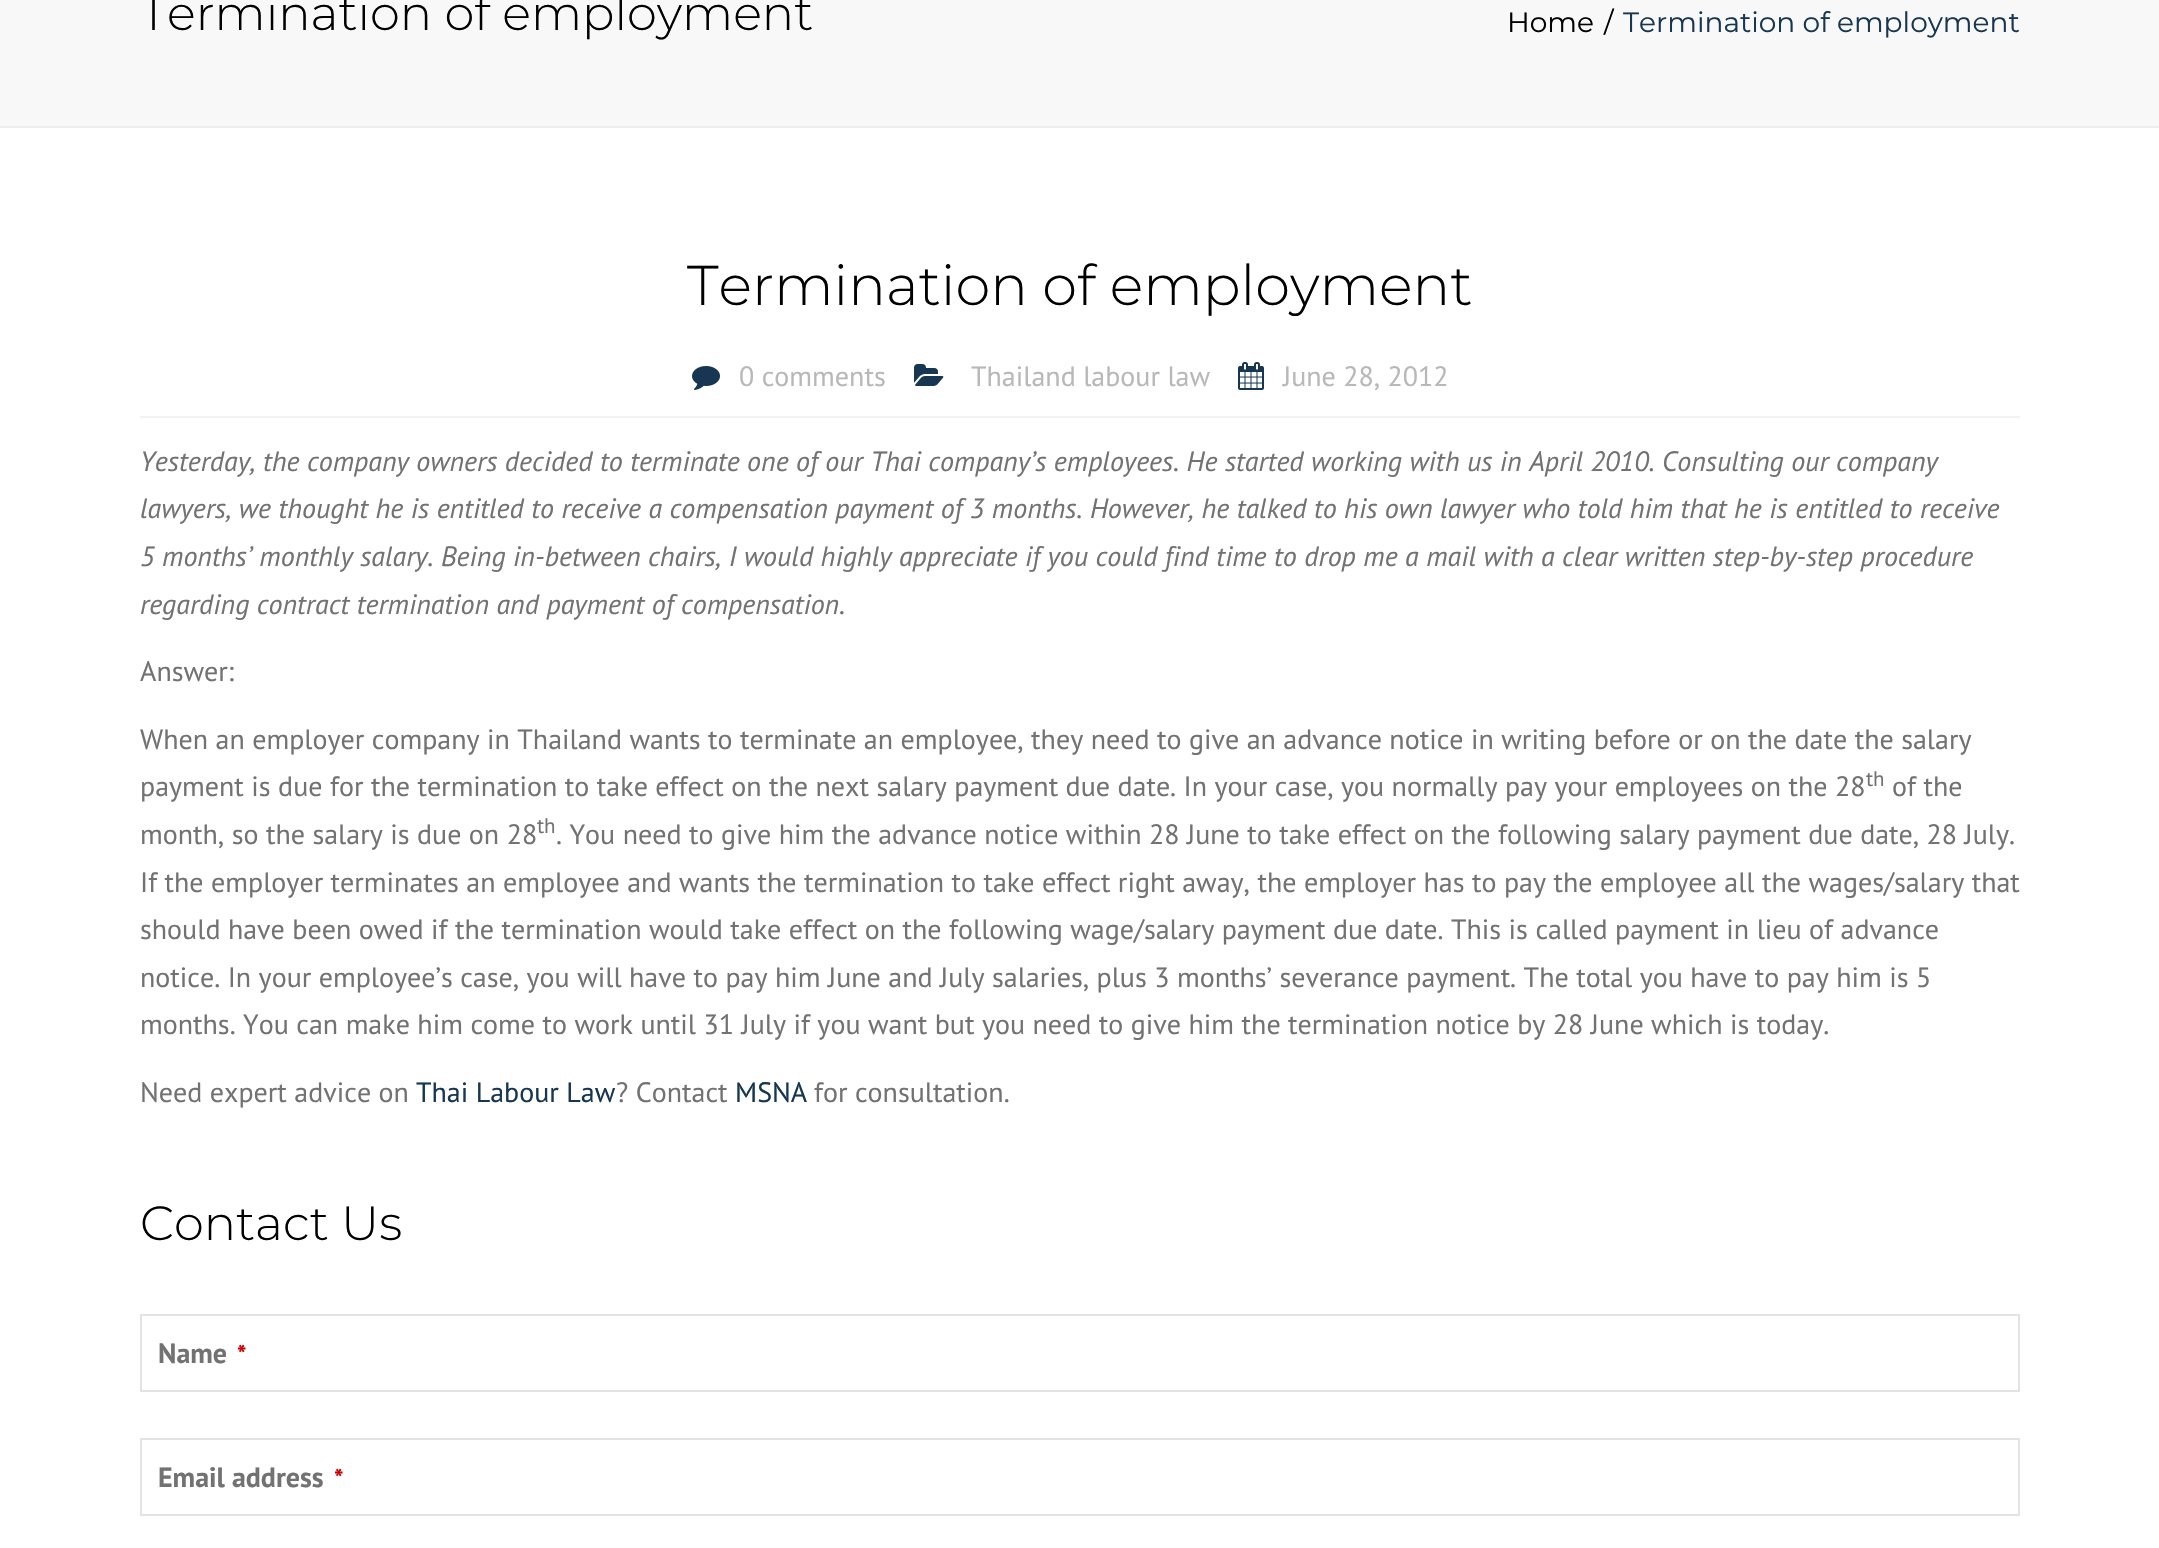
static SkFont makeFont(const char* family, int weight, float size, bool italic = false) {
  SkFontStyle style(weight, SkFontStyle::kNormal_Width,
    italic ? SkFontStyle::kItalic_Slant : SkFontStyle::kUpright_Slant);
  SkFont result(fontMgr->matchFamilyStyle(family, style), size);
  result.setSubpixel(true);
  return result;
}

static void text(SkCanvas* c, const char* s, float x, float y, const SkFont& font, SkColor color) {
  SkPaint ink(SkColor4f::FromColor(color));
  ink.setAntiAlias(true);
  c->drawString(s, x, y, font, ink);
}

static void box(SkCanvas* c, float l, float t, float r, float b, SkColor color) {
  SkPaint ink(SkColor4f::FromColor(color));
  ink.setAntiAlias(true);
  c->drawRect(SkRect::MakeLTRB(l, t, r, b), ink);
}

static void picture(SkCanvas* c, const char* path, float l, float t, float r, float b) {
  auto image = SkImages::DeferredFromEncodedData(SkData::MakeFromFileName(path));
  c->drawImageRect(image, SkRect::MakeLTRB(l, t, r, b), SkSamplingOptions());
}

void draw(SkCanvas* c) {
  SkPaint paint;
  paint.setAntiAlias(true);
  c->clear(0xffffffff);
  box(c, 0, 0, 2159, 126, 0xfff8f8f8);
  box(c, 0, 126, 2159, 128, 0xffededed);
  SkFont face1 = makeFont("Montserrat", 300, 48);
  text(c, "Termination of employment", 140, 30, face1, 0xff000000);
  SkFont face2 = makeFont("Montserrat", 400, 28);
  text(c, "Home", 1507, 32, face2, 0xff000000);
  text(c, "/", 1604, 32, face2, 0xff000000);
  text(c, "Termination of employment", 1623, 32, face2, 0xff163651);
  SkFont face3 = makeFont("Montserrat", 300, 56);
  text(c, "Termination of employment", 687, 305, face3, 0xff000000);
  picture(c, "img_01.png", 692, 366, 720, 390);
  SkFont face4 = makeFont("PT Sans", 400, 28);
  text(c, "0 comments", 739, 386, face4, 0xffb8b8b8);
  picture(c, "img_02.png", 914, 364, 944, 386);
  text(c, "Thailand labour law", 971, 386, face4, 0xffb8b8b8);
  picture(c, "img_03.png", 1238, 362, 1264, 390);
  text(c, "June 28, 2012", 1283, 386, face4, 0xffb8b8b8);
  box(c, 140, 416, 2020, 418, 0xfff2f2f2);
  SkFont face5 = makeFont("PT Sans", 400, 28, true);
  text(c, "Yesterday, the company owners decided to terminate one of our Thai company’s employees. He started working with us in April 2010. Consulting our company", 140, 471, face5, 0xff727272);
  text(c, "lawyers, we thought he is entitled to receive a compensation payment of 3 months. However, he talked to his own lawyer who told him that he is entitled to receive", 140, 518, face5, 0xff727272);
  text(c, "5 months’ monthly salary. Being in-between chairs, I would highly appreciate if you could find time to drop me a mail with a clear written step-by-step procedure", 140, 566, face5, 0xff727272);
  text(c, "regarding contract termination and payment of compensation.", 140, 614, face5, 0xff727272);
  text(c, "Answer:", 140, 681, face4, 0xff727272);
  text(c, "When an employer company in Thailand wants to terminate an employee, they need to give an advance notice in writing before or on the date the salary", 140, 749, face4, 0xff727272);
  text(c, "payment is due for the termination to take effect on the next salary payment due date. In your case, you normally pay your employees on the 28", 140, 796, face4, 0xff727272);
  SkFont face6 = makeFont("PT Sans", 400, 21);
  text(c, "th", 1866, 786, face6, 0xff727272);
  text(c, "of the", 1892, 796, face4, 0xff727272);
  text(c, "month, so the salary is due on 28", 140, 844, face4, 0xff727272);
  text(c, "th", 537, 833, face6, 0xff727272);
  text(c, ". You need to give him the advance notice within 28 June to take effect on the following salary payment due date, 28 July.", 556, 844, face4, 0xff727272);
  text(c, "If the employer terminates an employee and wants the termination to take effect right away, the employer has to pay the employee all the wages/salary that", 140, 892, face4, 0xff727272);
  text(c, "should have been owed if the termination would take effect on the following wage/salary payment due date. This is called payment in lieu of advance", 140, 939, face4, 0xff727272);
  text(c, "notice. In your employee’s case, you will have to pay him June and July salaries, plus 3 months’ severance payment. The total you have to pay him is 5", 140, 987, face4, 0xff727272);
  text(c, "months. You can make him come to work until 31 July if you want but you need to give him the termination notice by 28 June which is today.", 140, 1034, face4, 0xff727272);
  text(c, "Need expert advice on", 140, 1102, face4, 0xff727272);
  text(c, "Thai Labour Law", 416, 1102, face4, 0xff163651);
  text(c, "? Contact", 616, 1102, face4, 0xff727272);
  text(c, "MSNA", 735, 1102, face4, 0xff163651);
  text(c, "for consultation.", 814, 1102, face4, 0xff727272);
  text(c, "Contact Us", 140, 1240, face1, 0xff000000);
  paint.setStyle(SkPaint::kStroke_Style);
  paint.setStrokeWidth(2);
  paint.setColor(0xffe3e3e3);
  c->drawRect(SkRect::MakeLTRB(141, 1315, 2019, 1391), paint);
  SkFont face7 = makeFont("PT Sans", 700, 28);
  text(c, "Name", 158, 1363, face7, 0xff727272);
  SkFont face8 = makeFont("PT Sans", 700, 25);
  text(c, "*", 237, 1363, face8, 0xffcc0101);
  c->drawRect(SkRect::MakeLTRB(141, 1439, 2019, 1515), paint);
  text(c, "Email address", 158, 1487, face7, 0xff727272);
  text(c, "*", 334, 1487, face8, 0xffcc0101);
}
